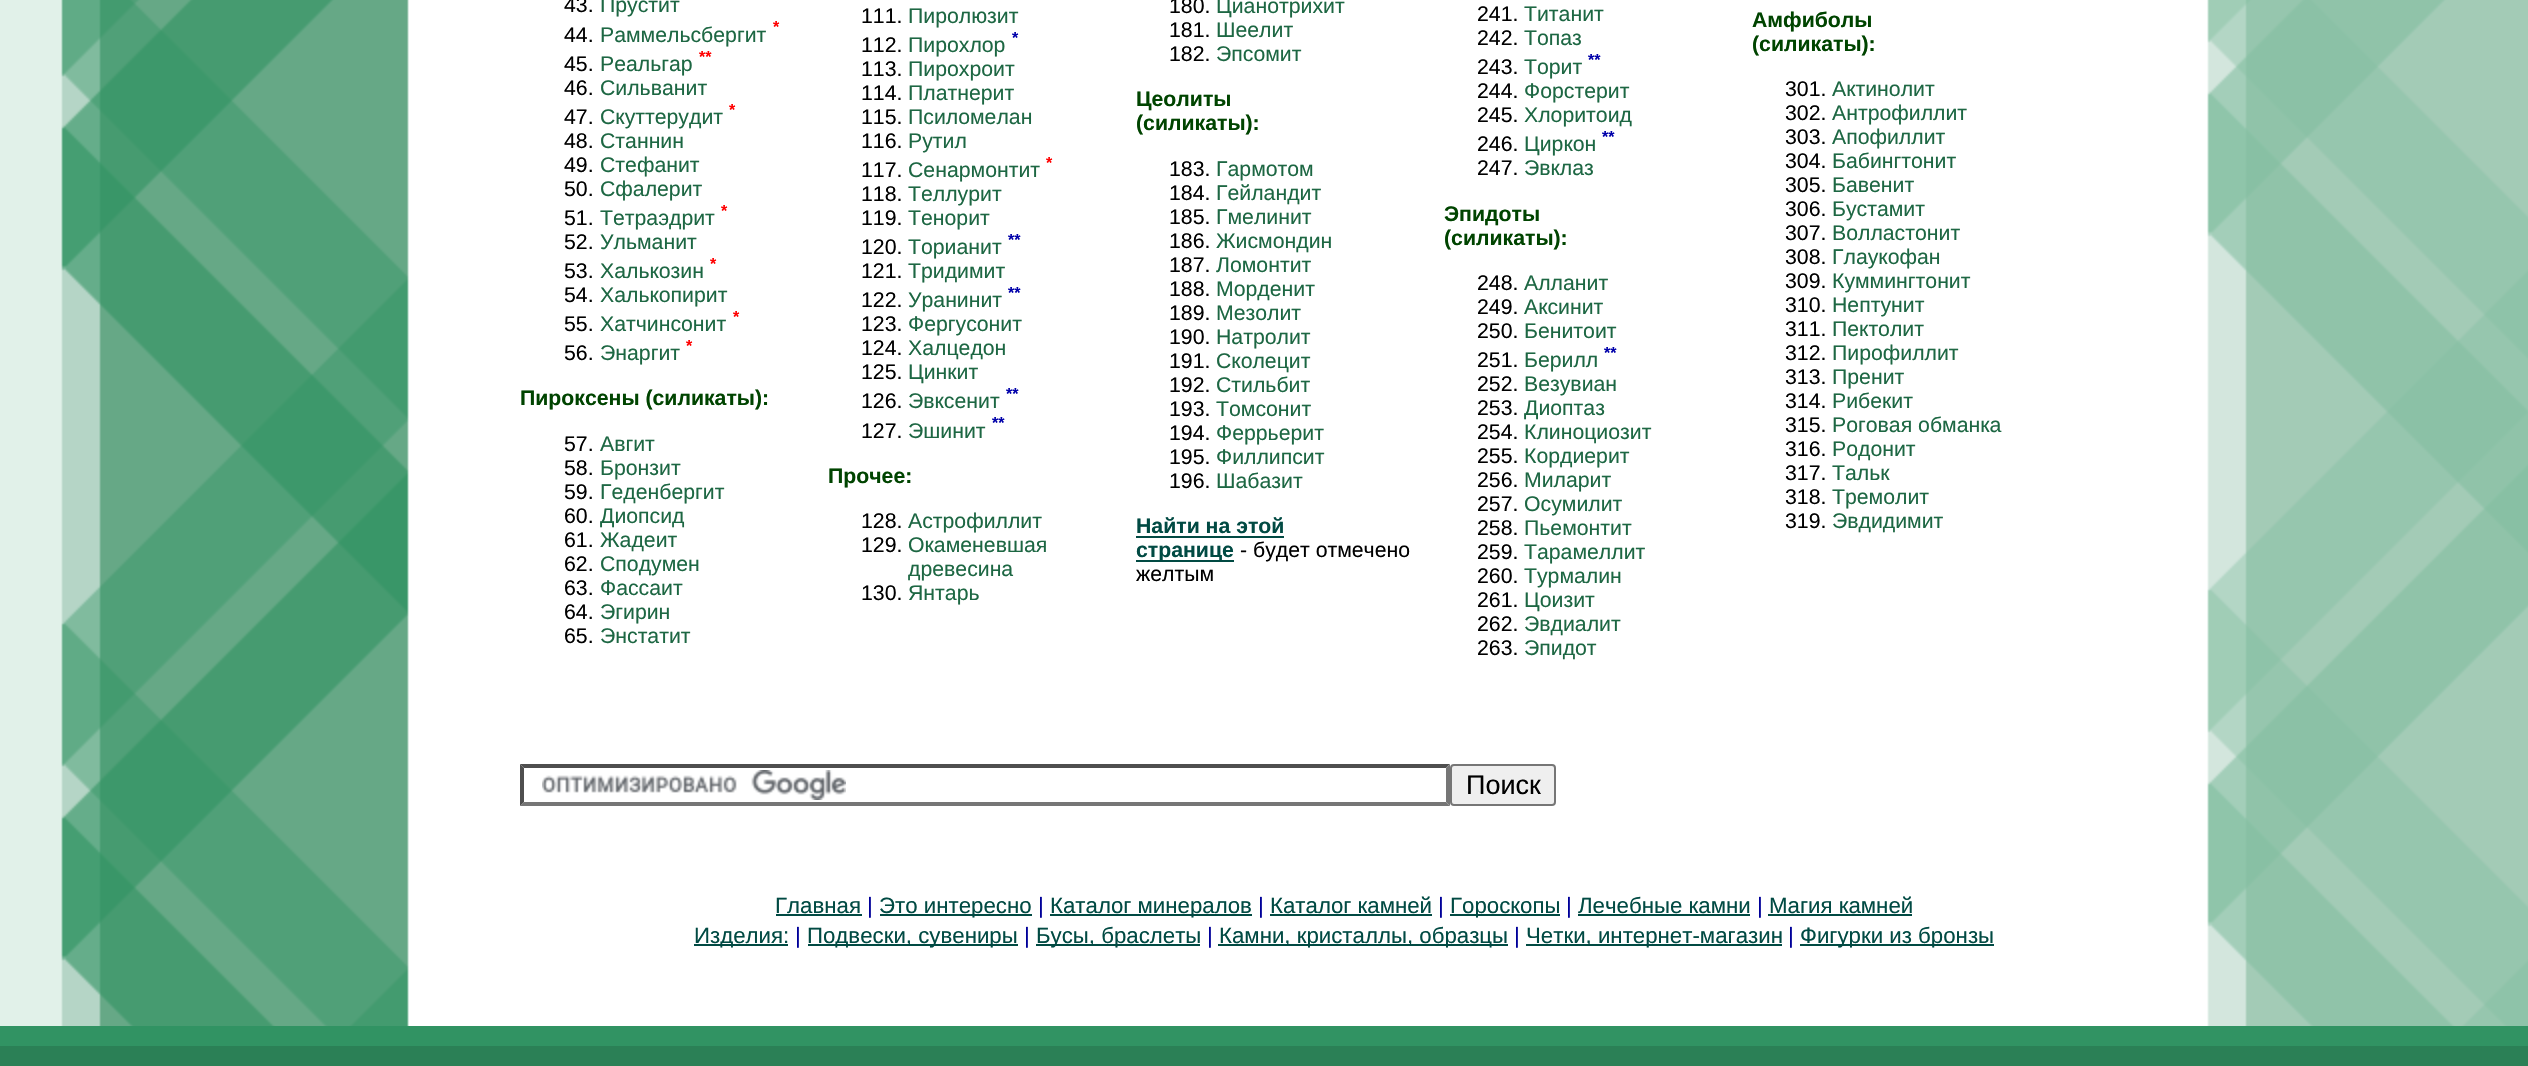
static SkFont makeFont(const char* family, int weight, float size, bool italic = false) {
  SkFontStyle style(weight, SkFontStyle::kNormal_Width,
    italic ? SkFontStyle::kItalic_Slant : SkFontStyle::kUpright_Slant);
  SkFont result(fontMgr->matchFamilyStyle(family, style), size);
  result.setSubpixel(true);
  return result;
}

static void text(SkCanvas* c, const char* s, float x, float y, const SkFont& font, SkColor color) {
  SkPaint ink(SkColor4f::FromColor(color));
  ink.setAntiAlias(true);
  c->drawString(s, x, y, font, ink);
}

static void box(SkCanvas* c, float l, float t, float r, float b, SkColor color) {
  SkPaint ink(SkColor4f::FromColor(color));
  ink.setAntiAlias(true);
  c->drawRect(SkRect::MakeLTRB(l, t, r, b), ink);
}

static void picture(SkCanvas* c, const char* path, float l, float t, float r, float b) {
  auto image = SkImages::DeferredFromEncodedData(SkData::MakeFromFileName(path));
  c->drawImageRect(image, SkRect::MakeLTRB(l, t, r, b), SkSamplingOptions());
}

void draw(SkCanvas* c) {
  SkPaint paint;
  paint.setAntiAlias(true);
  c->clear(0xffffffff);
  picture(c, "img_01.png", 0, 0, 409, 1026);
  SkFont face1 = makeFont("Liberation Sans", 400, 21.25f);
  text(c, "43.", 564, 12, face1, 0xff000000);
  text(c, "Прустит", 600, 12, face1, 0xff1d6743);
  SkFont face2 = makeFont("Liberation Sans", 700, 16);
  text(c, "*", 773, 32, face2, 0xffff0000);
  text(c, "44.", 564, 42, face1, 0xff000000);
  text(c, "Раммельсбергит", 600, 42, face1, 0xff1d6743);
  text(c, "**", 699, 62, face2, 0xffff0000);
  text(c, "45.", 564, 71, face1, 0xff000000);
  text(c, "Реальгар", 600, 71, face1, 0xff1d6743);
  text(c, "46.", 564, 95, face1, 0xff000000);
  text(c, "Сильванит", 600, 95, face1, 0xff1d6743);
  text(c, "*", 729, 115, face2, 0xffff0000);
  text(c, "47.", 564, 124, face1, 0xff000000);
  text(c, "Скуттерудит", 600, 124, face1, 0xff1d6743);
  text(c, "48.", 564, 148, face1, 0xff000000);
  text(c, "Станнин", 600, 148, face1, 0xff1d6743);
  text(c, "49.", 564, 172, face1, 0xff000000);
  text(c, "Стефанит", 600, 172, face1, 0xff1d6743);
  text(c, "50.", 564, 196, face1, 0xff000000);
  text(c, "Сфалерит", 600, 196, face1, 0xff1d6743);
  text(c, "*", 721, 216, face2, 0xffff0000);
  text(c, "51.", 564, 225, face1, 0xff000000);
  text(c, "Тетраэдрит", 600, 225, face1, 0xff1d6743);
  text(c, "52.", 564, 249, face1, 0xff000000);
  text(c, "Ульманит", 600, 249, face1, 0xff1d6743);
  text(c, "*", 710, 269, face2, 0xffff0000);
  text(c, "53.", 564, 278, face1, 0xff000000);
  text(c, "Халькозин", 600, 278, face1, 0xff1d6743);
  text(c, "54.", 564, 302, face1, 0xff000000);
  text(c, "Халькопирит", 600, 302, face1, 0xff1d6743);
  text(c, "*", 733, 322, face2, 0xffff0000);
  text(c, "55.", 564, 331, face1, 0xff000000);
  text(c, "Хатчинсонит", 600, 331, face1, 0xff1d6743);
  text(c, "*", 686, 351, face2, 0xffff0000);
  text(c, "56.", 564, 360, face1, 0xff000000);
  text(c, "Энаргит", 600, 360, face1, 0xff1d6743);
  SkFont face3 = makeFont("Liberation Sans", 700, 21.25f);
  text(c, "Пироксены (силикаты):", 520, 405, face3, 0xff004400);
  text(c, "57.", 564, 451, face1, 0xff000000);
  text(c, "Авгит", 600, 451, face1, 0xff1d6743);
  text(c, "58.", 564, 475, face1, 0xff000000);
  text(c, "Бронзит", 600, 475, face1, 0xff1d6743);
  text(c, "59.", 564, 499, face1, 0xff000000);
  text(c, "Геденбергит", 600, 499, face1, 0xff1d6743);
  text(c, "60.", 564, 523, face1, 0xff000000);
  text(c, "Диопсид", 600, 523, face1, 0xff1d6743);
  text(c, "61.", 564, 547, face1, 0xff000000);
  text(c, "Жадеит", 600, 547, face1, 0xff1d6743);
  text(c, "62.", 564, 571, face1, 0xff000000);
  text(c, "Сподумен", 600, 571, face1, 0xff1d6743);
  text(c, "63.", 564, 595, face1, 0xff000000);
  text(c, "Фассаит", 600, 595, face1, 0xff1d6743);
  text(c, "64.", 564, 619, face1, 0xff000000);
  text(c, "Эгирин", 600, 619, face1, 0xff1d6743);
  text(c, "65.", 564, 643, face1, 0xff000000);
  text(c, "Энстатит", 600, 643, face1, 0xff1d6743);
  text(c, "111.", 861, 23, face1, 0xff000000);
  text(c, "Пиролюзит", 908, 23, face1, 0xff1d6743);
  text(c, "*", 1012, 43, face2, 0xff0000aa);
  text(c, "112.", 861, 52, face1, 0xff000000);
  text(c, "Пирохлор", 908, 52, face1, 0xff1d6743);
  text(c, "113.", 861, 76, face1, 0xff000000);
  text(c, "Пирохроит", 908, 76, face1, 0xff1d6743);
  text(c, "114.", 861, 100, face1, 0xff000000);
  text(c, "Платнерит", 908, 100, face1, 0xff1d6743);
  text(c, "115.", 861, 124, face1, 0xff000000);
  text(c, "Псиломелан", 908, 124, face1, 0xff1d6743);
  text(c, "116.", 861, 148, face1, 0xff000000);
  text(c, "Рутил", 908, 148, face1, 0xff1d6743);
  text(c, "*", 1046, 168, face2, 0xffff0000);
  text(c, "117.", 861, 177, face1, 0xff000000);
  text(c, "Сенармонтит", 908, 177, face1, 0xff1d6743);
  text(c, "118.", 861, 201, face1, 0xff000000);
  text(c, "Теллурит", 908, 201, face1, 0xff1d6743);
  text(c, "119.", 861, 225, face1, 0xff000000);
  text(c, "Тенорит", 908, 225, face1, 0xff1d6743);
  text(c, "**", 1008, 245, face2, 0xff0000aa);
  text(c, "120.", 861, 254, face1, 0xff000000);
  text(c, "Торианит", 908, 254, face1, 0xff1d6743);
  text(c, "121.", 861, 278, face1, 0xff000000);
  text(c, "Тридимит", 908, 278, face1, 0xff1d6743);
  text(c, "**", 1008, 298, face2, 0xff0000aa);
  text(c, "122.", 861, 307, face1, 0xff000000);
  text(c, "Уранинит", 908, 307, face1, 0xff1d6743);
  text(c, "123.", 861, 331, face1, 0xff000000);
  text(c, "Фергусонит", 908, 331, face1, 0xff1d6743);
  text(c, "124.", 861, 355, face1, 0xff000000);
  text(c, "Халцедон", 908, 355, face1, 0xff1d6743);
  text(c, "125.", 861, 379, face1, 0xff000000);
  text(c, "Цинкит", 908, 379, face1, 0xff1d6743);
  text(c, "**", 1006, 399, face2, 0xff0000aa);
  text(c, "126.", 861, 408, face1, 0xff000000);
  text(c, "Эвксенит", 908, 408, face1, 0xff1d6743);
  text(c, "**", 992, 428, face2, 0xff0000aa);
  text(c, "127.", 861, 438, face1, 0xff000000);
  text(c, "Эшинит", 908, 438, face1, 0xff1d6743);
  text(c, "Прочее:", 828, 483, face3, 0xff004400);
  text(c, "128.", 861, 528, face1, 0xff000000);
  text(c, "Астрофиллит", 908, 528, face1, 0xff1d6743);
  text(c, "129.", 861, 552, face1, 0xff000000);
  text(c, "Окаменевшая", 908, 552, face1, 0xff1d6743);
  text(c, "древесина", 908, 576, face1, 0xff1d6743);
  text(c, "130.", 861, 600, face1, 0xff000000);
  text(c, "Янтарь", 908, 600, face1, 0xff1d6743);
  text(c, "180.", 1169, 13, face1, 0xff000000);
  text(c, "Цианотрихит", 1216, 13, face1, 0xff1d6743);
  text(c, "181.", 1169, 37, face1, 0xff000000);
  text(c, "Шеелит", 1216, 37, face1, 0xff1d6743);
  text(c, "182.", 1169, 61, face1, 0xff000000);
  text(c, "Эпсомит", 1216, 61, face1, 0xff1d6743);
  text(c, "Цеолиты", 1136, 106, face3, 0xff004400);
  text(c, "(силикаты):", 1136, 130, face3, 0xff004400);
  text(c, "183.", 1169, 176, face1, 0xff000000);
  text(c, "Гармотом", 1216, 176, face1, 0xff1d6743);
  text(c, "184.", 1169, 200, face1, 0xff000000);
  text(c, "Гейландит", 1216, 200, face1, 0xff1d6743);
  text(c, "185.", 1169, 224, face1, 0xff000000);
  text(c, "Гмелинит", 1216, 224, face1, 0xff1d6743);
  text(c, "186.", 1169, 248, face1, 0xff000000);
  text(c, "Жисмондин", 1216, 248, face1, 0xff1d6743);
  text(c, "187.", 1169, 272, face1, 0xff000000);
  text(c, "Ломонтит", 1216, 272, face1, 0xff1d6743);
  text(c, "188.", 1169, 296, face1, 0xff000000);
  text(c, "Морденит", 1216, 296, face1, 0xff1d6743);
  text(c, "189.", 1169, 320, face1, 0xff000000);
  text(c, "Мезолит", 1216, 320, face1, 0xff1d6743);
  text(c, "190.", 1169, 344, face1, 0xff000000);
  text(c, "Натролит", 1216, 344, face1, 0xff1d6743);
  text(c, "191.", 1169, 368, face1, 0xff000000);
  text(c, "Сколецит", 1216, 368, face1, 0xff1d6743);
  text(c, "192.", 1169, 392, face1, 0xff000000);
  text(c, "Стильбит", 1216, 392, face1, 0xff1d6743);
  text(c, "193.", 1169, 416, face1, 0xff000000);
  text(c, "Томсонит", 1216, 416, face1, 0xff1d6743);
  text(c, "194.", 1169, 440, face1, 0xff000000);
  text(c, "Феррьерит", 1216, 440, face1, 0xff1d6743);
  text(c, "195.", 1169, 464, face1, 0xff000000);
  text(c, "Филлипсит", 1216, 464, face1, 0xff1d6743);
  text(c, "196.", 1169, 488, face1, 0xff000000);
  text(c, "Шабазит", 1216, 488, face1, 0xff1d6743);
  text(c, "Найти на этой", 1136, 533, face3, 0xff014a43);
  box(c, 1136, 536, 1284, 538, 0xff014a43);
  box(c, 1136, 560, 1234, 562, 0xff014a43);
  text(c, "странице", 1136, 557, face3, 0xff014a43);
  text(c, "- будет отмечено", 1240, 557, face1, 0xff000000);
  text(c, "желтым", 1136, 581, face1, 0xff000000);
  text(c, "241.", 1477, 21, face1, 0xff000000);
  text(c, "Титанит", 1524, 21, face1, 0xff1d6743);
  text(c, "242.", 1477, 45, face1, 0xff000000);
  text(c, "Топаз", 1524, 45, face1, 0xff1d6743);
  text(c, "**", 1588, 65, face2, 0xff0000aa);
  text(c, "243.", 1477, 74, face1, 0xff000000);
  text(c, "Торит", 1524, 74, face1, 0xff1d6743);
  text(c, "244.", 1477, 98, face1, 0xff000000);
  text(c, "Форстерит", 1524, 98, face1, 0xff1d6743);
  text(c, "245.", 1477, 122, face1, 0xff000000);
  text(c, "Хлоритоид", 1524, 122, face1, 0xff1d6743);
  text(c, "**", 1602, 142, face2, 0xff0000aa);
  text(c, "246.", 1477, 151, face1, 0xff000000);
  text(c, "Циркон", 1524, 151, face1, 0xff1d6743);
  text(c, "247.", 1477, 175, face1, 0xff000000);
  text(c, "Эвклаз", 1524, 175, face1, 0xff1d6743);
  text(c, "Эпидоты", 1444, 221, face3, 0xff004400);
  text(c, "(силикаты):", 1444, 245, face3, 0xff004400);
  text(c, "248.", 1477, 290, face1, 0xff000000);
  text(c, "Алланит", 1524, 290, face1, 0xff1d6743);
  text(c, "249.", 1477, 314, face1, 0xff000000);
  text(c, "Аксинит", 1524, 314, face1, 0xff1d6743);
  text(c, "250.", 1477, 338, face1, 0xff000000);
  text(c, "Бенитоит", 1524, 338, face1, 0xff1d6743);
  text(c, "**", 1604, 358, face2, 0xff0000aa);
  text(c, "251.", 1477, 367, face1, 0xff000000);
  text(c, "Берилл", 1524, 367, face1, 0xff1d6743);
  text(c, "252.", 1477, 391, face1, 0xff000000);
  text(c, "Везувиан", 1524, 391, face1, 0xff1d6743);
  text(c, "253.", 1477, 415, face1, 0xff000000);
  text(c, "Диоптаз", 1524, 415, face1, 0xff1d6743);
  text(c, "254.", 1477, 439, face1, 0xff000000);
  text(c, "Клиноциозит", 1524, 439, face1, 0xff1d6743);
  text(c, "255.", 1477, 463, face1, 0xff000000);
  text(c, "Кордиерит", 1524, 463, face1, 0xff1d6743);
  text(c, "256.", 1477, 487, face1, 0xff000000);
  text(c, "Миларит", 1524, 487, face1, 0xff1d6743);
  text(c, "257.", 1477, 511, face1, 0xff000000);
  text(c, "Осумилит", 1524, 511, face1, 0xff1d6743);
  text(c, "258.", 1477, 535, face1, 0xff000000);
  text(c, "Пьемонтит", 1524, 535, face1, 0xff1d6743);
  text(c, "259.", 1477, 559, face1, 0xff000000);
  text(c, "Тарамеллит", 1524, 559, face1, 0xff1d6743);
  text(c, "260.", 1477, 583, face1, 0xff000000);
  text(c, "Турмалин", 1524, 583, face1, 0xff1d6743);
  text(c, "261.", 1477, 607, face1, 0xff000000);
  text(c, "Цоизит", 1524, 607, face1, 0xff1d6743);
  text(c, "262.", 1477, 631, face1, 0xff000000);
  text(c, "Эвдиалит", 1524, 631, face1, 0xff1d6743);
  text(c, "263.", 1477, 655, face1, 0xff000000);
  text(c, "Эпидот", 1524, 655, face1, 0xff1d6743);
  text(c, "Амфиболы", 1752, 27, face3, 0xff004400);
  text(c, "(силикаты):", 1752, 51, face3, 0xff004400);
  text(c, "301.", 1785, 96, face1, 0xff000000);
  text(c, "Актинолит", 1832, 96, face1, 0xff1d6743);
  text(c, "302.", 1785, 120, face1, 0xff000000);
  text(c, "Антрофиллит", 1832, 120, face1, 0xff1d6743);
  text(c, "303.", 1785, 144, face1, 0xff000000);
  text(c, "Апофиллит", 1832, 144, face1, 0xff1d6743);
  text(c, "304.", 1785, 168, face1, 0xff000000);
  text(c, "Бабингтонит", 1832, 168, face1, 0xff1d6743);
  text(c, "305.", 1785, 192, face1, 0xff000000);
  text(c, "Бавенит", 1832, 192, face1, 0xff1d6743);
  text(c, "306.", 1785, 216, face1, 0xff000000);
  text(c, "Бустамит", 1832, 216, face1, 0xff1d6743);
  text(c, "307.", 1785, 240, face1, 0xff000000);
  text(c, "Волластонит", 1832, 240, face1, 0xff1d6743);
  text(c, "308.", 1785, 264, face1, 0xff000000);
  text(c, "Глаукофан", 1832, 264, face1, 0xff1d6743);
  text(c, "309.", 1785, 288, face1, 0xff000000);
  text(c, "Куммингтонит", 1832, 288, face1, 0xff1d6743);
  text(c, "310.", 1785, 312, face1, 0xff000000);
  text(c, "Нептунит", 1832, 312, face1, 0xff1d6743);
  text(c, "311.", 1785, 336, face1, 0xff000000);
  text(c, "Пектолит", 1832, 336, face1, 0xff1d6743);
  text(c, "312.", 1785, 360, face1, 0xff000000);
  text(c, "Пирофиллит", 1832, 360, face1, 0xff1d6743);
  text(c, "313.", 1785, 384, face1, 0xff000000);
  text(c, "Пренит", 1832, 384, face1, 0xff1d6743);
  text(c, "314.", 1785, 408, face1, 0xff000000);
  text(c, "Рибекит", 1832, 408, face1, 0xff1d6743);
  text(c, "315.", 1785, 432, face1, 0xff000000);
  text(c, "Роговая обманка", 1832, 432, face1, 0xff1d6743);
  text(c, "316.", 1785, 456, face1, 0xff000000);
  text(c, "Родонит", 1832, 456, face1, 0xff1d6743);
  text(c, "317.", 1785, 480, face1, 0xff000000);
  text(c, "Тальк", 1832, 480, face1, 0xff1d6743);
  text(c, "318.", 1785, 504, face1, 0xff000000);
  text(c, "Тремолит", 1832, 504, face1, 0xff1d6743);
  text(c, "319.", 1785, 528, face1, 0xff000000);
  text(c, "Эвдидимит", 1832, 528, face1, 0xff1d6743);
  picture(c, "img_02.png", 542, 770, 846, 800);
  paint.setColor(0xff4f4f4f);
  c->drawPath(SkPathBuilder().moveTo(520, 764).lineTo(1450, 764).lineTo(1446, 768).lineTo(524, 768).close().detach(), paint);
  paint.setColor(0xff767676);
  c->drawPath(SkPathBuilder().moveTo(1450, 764).lineTo(1450, 806).lineTo(1446, 802).lineTo(1446, 768).close().detach(), paint);
  c->drawPath(SkPathBuilder().moveTo(1450, 806).lineTo(520, 806).lineTo(524, 802).lineTo(1446, 802).close().detach(), paint);
  paint.setColor(0xff4f4f4f);
  c->drawPath(SkPathBuilder().moveTo(520, 806).lineTo(520, 764).lineTo(524, 768).lineTo(524, 802).close().detach(), paint);
  paint.setColor(0xffefefef);
  c->drawRoundRect(SkRect::MakeLTRB(1451, 765, 1555, 805), 3, 3, paint);
  paint.setStyle(SkPaint::kStroke_Style);
  paint.setStrokeWidth(2);
  paint.setColor(0xff767676);
  c->drawRoundRect(SkRect::MakeLTRB(1451, 765, 1555, 805), 3, 3, paint);
  SkFont face4 = makeFont("Liberation Sans", 400, 27);
  text(c, "Поиск", 1466, 794, face4, 0xff000000);
  SkFont face5 = makeFont("Liberation Sans", 400, 22.25f);
  text(c, "Главная", 775, 913, face5, 0xff014a43);
  box(c, 776, 914, 862, 916, 0xff014a43);
  text(c, "|", 867, 913, face5, 0xff000099);
  box(c, 880, 914, 1032, 916, 0xff014a43);
  text(c, "Это интересно", 879, 913, face5, 0xff014a43);
  text(c, "|", 1038, 913, face5, 0xff000099);
  box(c, 1050, 914, 1252, 916, 0xff014a43);
  text(c, "Каталог минералов", 1050, 913, face5, 0xff014a43);
  text(c, "|", 1258, 913, face5, 0xff000099);
  text(c, "Каталог камней", 1270, 913, face5, 0xff014a43);
  box(c, 1270, 914, 1432, 916, 0xff014a43);
  text(c, "|", 1438, 913, face5, 0xff000099);
  box(c, 1450, 914, 1560, 916, 0xff014a43);
  text(c, "Гороскопы", 1450, 913, face5, 0xff014a43);
  text(c, "|", 1566, 913, face5, 0xff000099);
  text(c, "Лечебные камни", 1578, 913, face5, 0xff014a43);
  box(c, 1578, 914, 1750, 916, 0xff014a43);
  text(c, "|", 1757, 913, face5, 0xff000099);
  text(c, "Магия камней", 1769, 913, face5, 0xff014a43);
  box(c, 1768, 914, 1912, 916, 0xff014a43);
  box(c, 694, 944, 788, 946, 0xff014a43);
  text(c, "Изделия:", 694, 943, face5, 0xff014a43);
  text(c, "|", 795, 943, face5, 0xff000099);
  box(c, 808, 944, 1018, 946, 0xff014a43);
  text(c, "Подвески, сувениры", 807, 943, face5, 0xff014a43);
  text(c, "|", 1024, 943, face5, 0xff000099);
  box(c, 1036, 944, 1200, 946, 0xff014a43);
  text(c, "Бусы, браслеты", 1036, 943, face5, 0xff014a43);
  text(c, "|", 1207, 943, face5, 0xff000099);
  box(c, 1218, 944, 1508, 946, 0xff014a43);
  text(c, "Камни, кристаллы, образцы", 1219, 943, face5, 0xff014a43);
  text(c, "|", 1514, 943, face5, 0xff000099);
  box(c, 1526, 944, 1782, 946, 0xff014a43);
  text(c, "Четки, интернет-магазин", 1526, 943, face5, 0xff014a43);
  text(c, "|", 1788, 943, face5, 0xff000099);
  box(c, 1800, 944, 1994, 946, 0xff014a43);
  text(c, "Фигурки из бронзы", 1800, 943, face5, 0xff014a43);
  picture(c, "img_03.png", 2207, 0, 2528, 1026);
  box(c, 0, 1026, 2528, 1046, 0xff319363);
  box(c, 0, 1046, 2528, 1066, 0xff2b8056);
}
